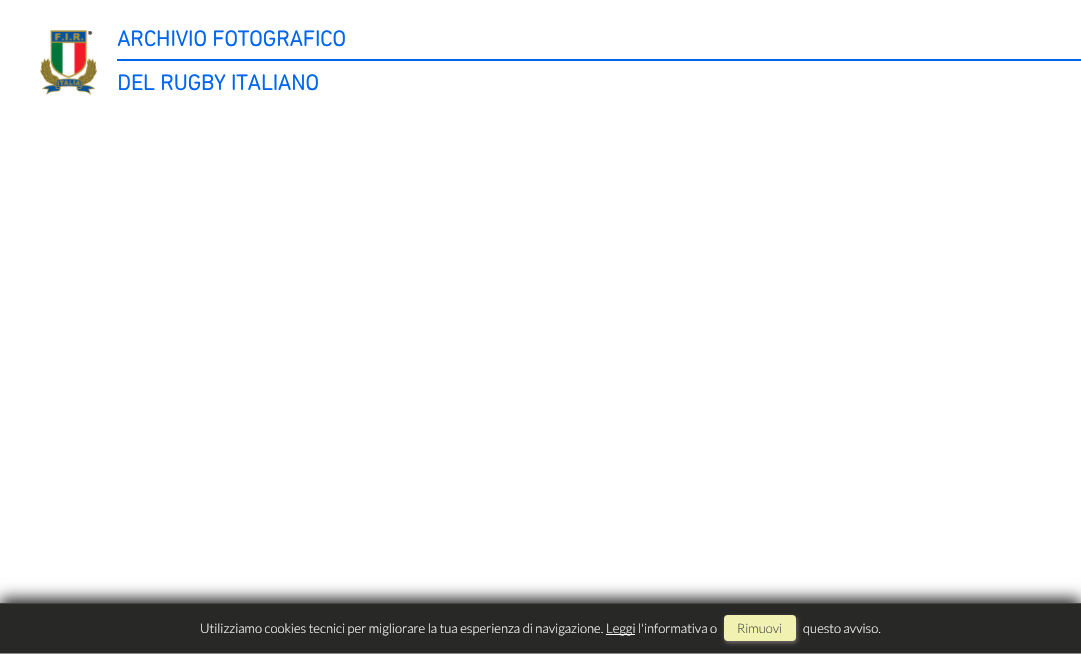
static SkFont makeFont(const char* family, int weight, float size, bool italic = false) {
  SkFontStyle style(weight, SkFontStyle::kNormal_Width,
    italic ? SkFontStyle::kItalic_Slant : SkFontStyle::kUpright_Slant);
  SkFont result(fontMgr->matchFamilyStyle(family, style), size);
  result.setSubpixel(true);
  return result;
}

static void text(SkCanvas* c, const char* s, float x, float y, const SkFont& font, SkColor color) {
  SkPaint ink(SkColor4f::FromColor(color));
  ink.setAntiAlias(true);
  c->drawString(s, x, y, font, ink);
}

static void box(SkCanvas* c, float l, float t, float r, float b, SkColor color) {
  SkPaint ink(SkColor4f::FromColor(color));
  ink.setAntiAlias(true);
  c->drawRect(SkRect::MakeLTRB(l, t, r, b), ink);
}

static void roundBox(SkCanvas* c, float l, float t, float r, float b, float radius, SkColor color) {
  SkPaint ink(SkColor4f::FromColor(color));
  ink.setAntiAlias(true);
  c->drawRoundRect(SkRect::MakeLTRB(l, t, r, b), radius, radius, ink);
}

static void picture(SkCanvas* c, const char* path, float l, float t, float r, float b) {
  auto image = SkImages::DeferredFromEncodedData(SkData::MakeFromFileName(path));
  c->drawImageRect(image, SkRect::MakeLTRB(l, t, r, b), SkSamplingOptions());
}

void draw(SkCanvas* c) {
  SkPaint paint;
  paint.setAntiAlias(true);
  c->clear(0xffffffff);
  picture(c, "img_01.png", 40, 30, 97, 95);
  SkFont face1 = makeFont("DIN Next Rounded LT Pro", 700, 22);
  text(c, "ARCHIVIO FOTOGRAFICO", 117, 46, face1, 0xff0066f0);
  box(c, 117, 59, 1081, 61, 0xff0066f0);
  text(c, "DEL RUGBY ITALIANO", 117, 90, face1, 0xff0066f0);
  paint.setColor(0xff1a1a1a);
  paint.setMaskFilter(SkMaskFilter::MakeBlur(kNormal_SkBlurStyle, 7.5f));
  c->drawRect(SkRect::MakeLTRB(0, 599, 1081, 650), paint);
  paint.setMaskFilter(nullptr);
  box(c, 0, 604, 1081, 653, 0xff282827);
  box(c, 0, 603, 1081, 604, 0xff474747);
  box(c, 0, 653, 1081, 654, 0xff8d8d8d);
  SkFont face2 = makeFont("Lato", 300, 13);
  text(c, "Utilizziamo cookies tecnici per migliorare la tua esperienza di navigazione.", 200, 633, face2, 0xffffffff);
  box(c, 606, 634, 635, 635, 0xffffffff);
  text(c, "Leggi l'informativa o", 606, 633, face2, 0xffffffff);
  paint.setColor(0xff766d6d);
  paint.setMaskFilter(SkMaskFilter::MakeBlur(kNormal_SkBlurStyle, 2));
  c->drawRoundRect(SkRect::MakeLTRB(725, 617, 797, 643), 4, 4, paint);
  paint.setMaskFilter(nullptr);
  roundBox(c, 724, 615, 796, 641, 4, 0xfff1f2b1);
  text(c, "Rimuovi", 737, 633, face2, 0xff474746);
  text(c, "questo avviso.", 803, 633, face2, 0xffffffff);
}
